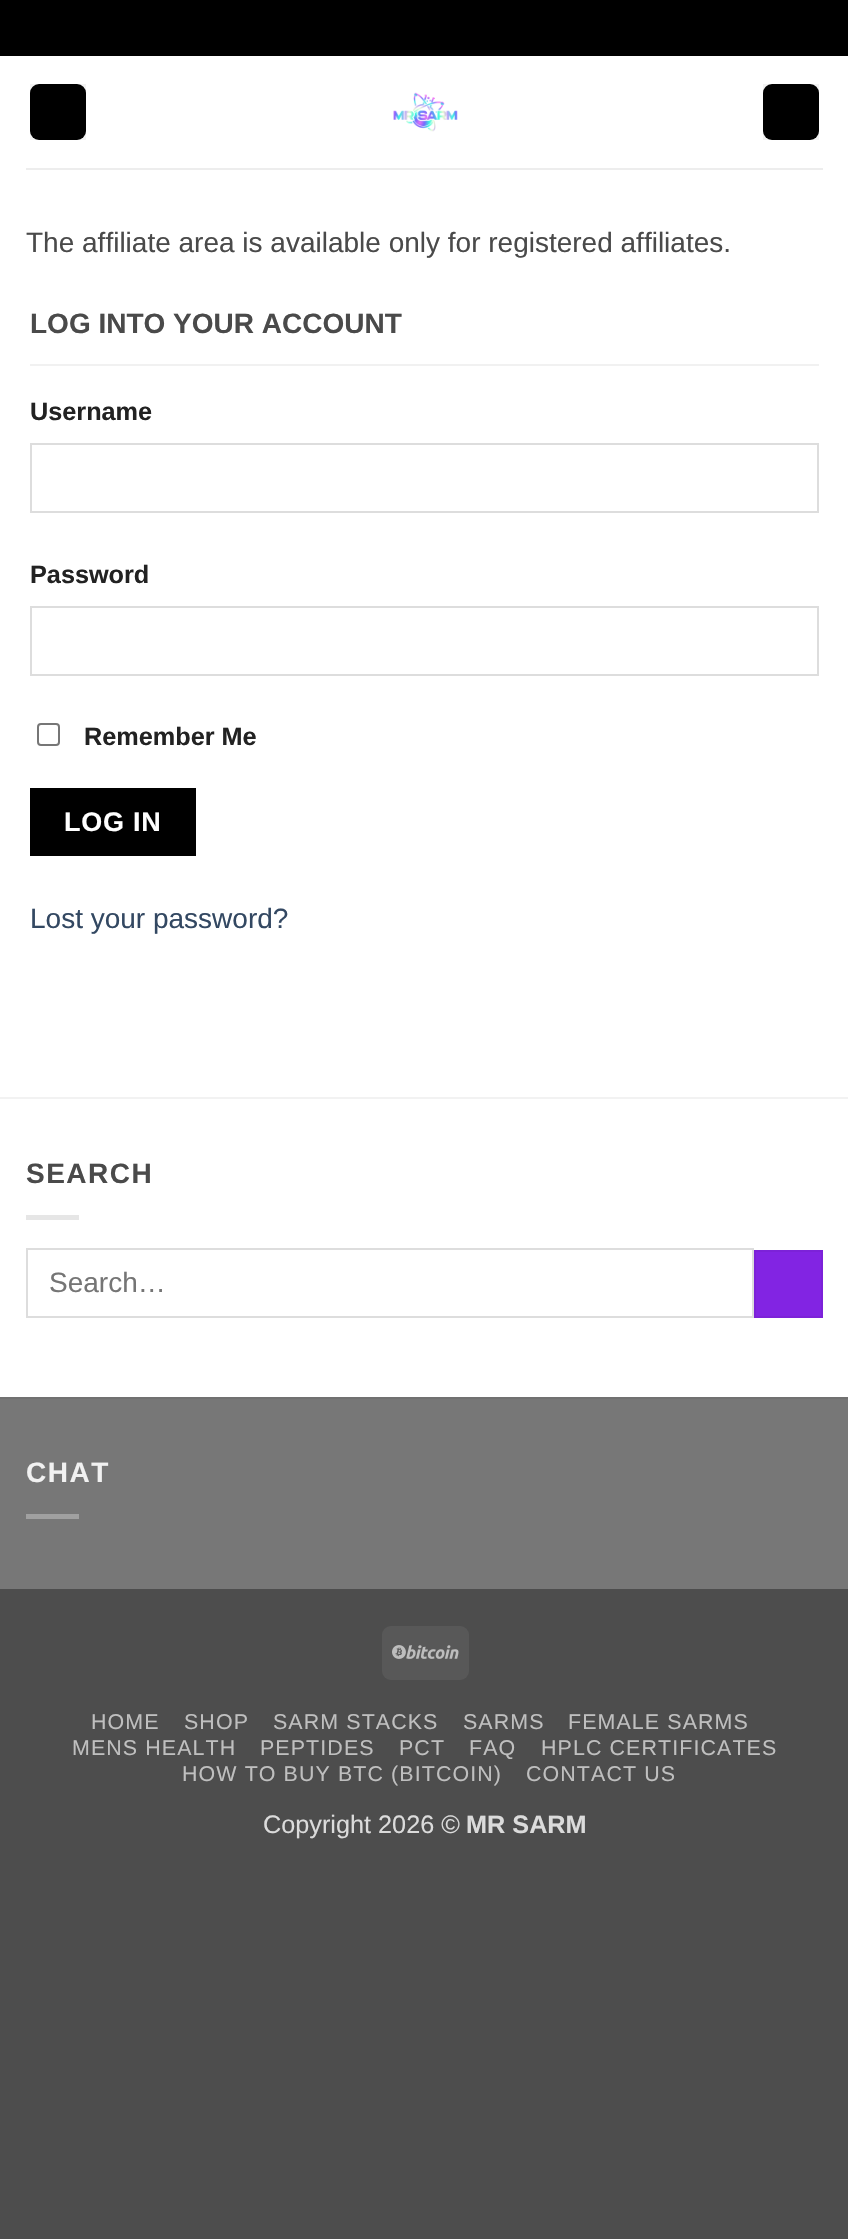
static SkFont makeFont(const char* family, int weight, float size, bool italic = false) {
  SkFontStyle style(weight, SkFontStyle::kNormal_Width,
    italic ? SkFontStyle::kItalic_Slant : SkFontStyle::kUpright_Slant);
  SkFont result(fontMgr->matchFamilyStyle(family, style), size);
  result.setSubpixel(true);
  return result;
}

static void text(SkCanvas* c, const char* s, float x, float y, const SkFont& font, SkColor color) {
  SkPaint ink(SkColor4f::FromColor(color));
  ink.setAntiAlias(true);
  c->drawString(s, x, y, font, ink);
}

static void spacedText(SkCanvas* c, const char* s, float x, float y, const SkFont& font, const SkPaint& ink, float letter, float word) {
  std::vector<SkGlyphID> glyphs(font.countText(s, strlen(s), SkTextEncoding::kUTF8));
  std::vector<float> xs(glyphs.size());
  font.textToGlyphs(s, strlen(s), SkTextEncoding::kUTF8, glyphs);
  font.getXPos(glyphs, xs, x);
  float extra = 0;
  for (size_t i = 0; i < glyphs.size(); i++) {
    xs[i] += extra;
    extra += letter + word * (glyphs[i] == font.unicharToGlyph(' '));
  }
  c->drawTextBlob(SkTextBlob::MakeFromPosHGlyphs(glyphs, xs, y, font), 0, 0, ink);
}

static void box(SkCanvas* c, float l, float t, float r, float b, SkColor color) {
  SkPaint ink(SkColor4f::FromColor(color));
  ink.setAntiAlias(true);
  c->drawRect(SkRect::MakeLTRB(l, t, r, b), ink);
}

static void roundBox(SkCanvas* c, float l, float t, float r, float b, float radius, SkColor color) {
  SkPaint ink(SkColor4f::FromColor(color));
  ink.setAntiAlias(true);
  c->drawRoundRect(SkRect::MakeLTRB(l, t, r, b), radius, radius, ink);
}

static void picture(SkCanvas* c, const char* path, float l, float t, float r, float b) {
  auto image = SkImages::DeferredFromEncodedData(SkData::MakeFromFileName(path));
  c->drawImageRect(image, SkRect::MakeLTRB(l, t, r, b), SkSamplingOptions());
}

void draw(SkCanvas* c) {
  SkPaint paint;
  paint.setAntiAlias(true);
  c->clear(0xff4d4d4d);
  box(c, 0, 56, 848, 1397, 0xffffffff);
  box(c, 0, 0, 848, 56, 0xff000000);
  roundBox(c, 30, 84, 86, 140, 9, 0xff000000);
  paint.setStyle(SkPaint::kStroke_Style);
  paint.setStrokeWidth(2);
  paint.setColor(0x0d000000);
  c->drawRect(SkRect::MakeLTRB(31, 85, 85, 139), paint);
  picture(c, "img_01.png", 393, 92, 458, 132);
  roundBox(c, 763, 84, 819, 140, 9, 0xff000000);
  c->drawRect(SkRect::MakeLTRB(764, 85, 818, 139), paint);
  box(c, 26, 168, 823, 170, 0xffededed);
  SkFont face1 = makeFont("Liberation Sans", 400, 28);
  text(c, "The affiliate area is available only for registered affiliates.", 26, 252, face1, 0xff4a4a4a);
  box(c, 30, 364, 819, 366, 0xfff1f1f1);
  SkFont face2 = makeFont("Liberation Sans", 700, 28);
  text(c, "LOG INTO YOUR ACCOUNT", 30, 333, face2, 0xff4a4a4a);
  SkFont face3 = makeFont("Liberation Sans", 700, 25.25f);
  text(c, "Username", 30, 420, face3, 0xff222222);
  paint.setColor(0xffdddddd);
  c->drawRect(SkRect::MakeLTRB(31, 444, 818, 512), paint);
  text(c, "Password", 30, 583, face3, 0xff222222);
  c->drawRect(SkRect::MakeLTRB(31, 607, 818, 675), paint);
  paint.setColor(0xff767676);
  c->drawRoundRect(SkRect::MakeLTRB(38, 724, 59, 745), 3, 3, paint);
  text(c, "Remember Me", 84, 745, face3, 0xff222222);
  box(c, 30, 788, 196, 856, 0xff000000);
  SkFont face4 = makeFont("Liberation Sans", 700, 27);
  paint.setStyle(SkPaint::kFill_Style);
  paint.setColor(0xffffffff);
  spacedText(c, "LOG IN", 64, 831, face4, paint, 0.75f, 0);
  text(c, "Lost your password?", 30, 928, face1, 0xff334862);
  box(c, 0, 1097, 848, 1099, 0xfff2f2f2);
  paint.setColor(0xff4a4a4a);
  spacedText(c, "SEARCH", 26, 1183, face2, paint, 1.5f, 0);
  box(c, 26, 1215, 79, 1220, 0xffe6e6e6);
  paint.setStyle(SkPaint::kStroke_Style);
  paint.setColor(0xffdddddd);
  c->drawRect(SkRect::MakeLTRB(27, 1249, 753, 1317), paint);
  text(c, "Search…", 49, 1292, face1, 0xff757575);
  paint.setStyle(SkPaint::kFill_Style);
  paint.setColor(0xff8224e3);
  c->drawRect(SkRect::MakeLTRB(755, 1251, 822, 1317), paint);
  paint.setStyle(SkPaint::kStroke_Style);
  paint.setColor(0xff7c22d8);
  c->drawRect(SkRect::MakeLTRB(755, 1251, 822, 1317), paint);
  box(c, 0, 1399, 848, 1589, 0xff777777);
  box(c, 0, 1397, 848, 1399, 0xff717171);
  paint.setStyle(SkPaint::kFill_Style);
  paint.setColor(0xfff1f1f1);
  spacedText(c, "CHAT", 26, 1482, face2, paint, 1.5f, 0);
  box(c, 26, 1514, 79, 1519, 0xffa0a0a0);
  roundBox(c, 382, 1626, 469, 1680, 9, 0xff585858);
  picture(c, "img_02.png", 392, 1645, 459, 1659);
  SkFont face5 = makeFont("Liberation Sans", 400, 21.4f);
  paint.setColor(0xffbfbfbf);
  spacedText(c, "HOME", 91, 1729, face5, paint, 1.1f, 0);
  spacedText(c, "SHOP", 184, 1729, face5, paint, 1.1f, 0);
  spacedText(c, "SARM STACKS", 273, 1729, face5, paint, 1.1f, 0);
  spacedText(c, "SARMS", 463, 1729, face5, paint, 1.1f, 0);
  spacedText(c, "FEMALE SARMS", 568, 1729, face5, paint, 1.1f, 0);
  spacedText(c, "MENS HEALTH", 72, 1755, face5, paint, 1.1f, 0);
  spacedText(c, "PEPTIDES", 260, 1755, face5, paint, 1.1f, 0);
  spacedText(c, "PCT", 399, 1755, face5, paint, 1.1f, 0);
  spacedText(c, "FAQ", 469, 1755, face5, paint, 1.1f, 0);
  spacedText(c, "HPLC CERTIFICATES", 541, 1755, face5, paint, 1.1f, 0);
  spacedText(c, "HOW TO BUY BTC (BITCOIN)", 182, 1781, face5, paint, 1.1f, 0);
  spacedText(c, "CONTACT US", 526, 1781, face5, paint, 1.1f, 0);
  SkFont face6 = makeFont("Liberation Sans", 400, 25.25f);
  text(c, "Copyright 2026 ©", 263, 1833, face6, 0xffdbdbdb);
  text(c, "MR SARM", 466, 1833, face3, 0xffdbdbdb);
}
